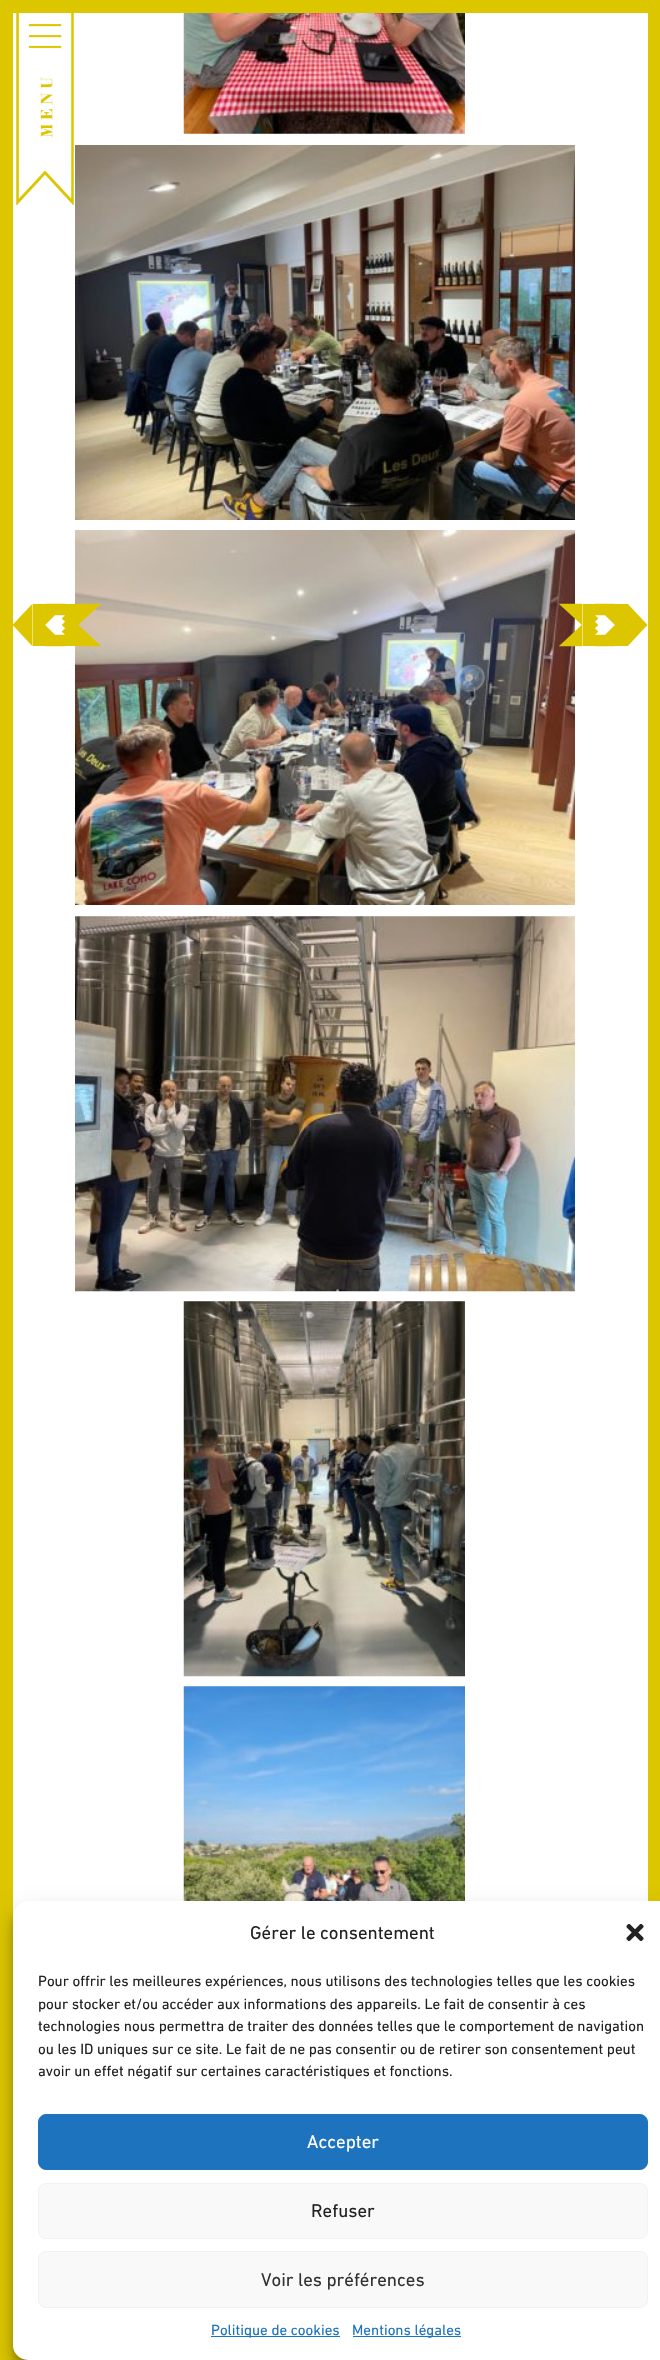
static SkFont makeFont(const char* family, int weight, float size, bool italic = false) {
  SkFontStyle style(weight, SkFontStyle::kNormal_Width,
    italic ? SkFontStyle::kItalic_Slant : SkFontStyle::kUpright_Slant);
  SkFont result(fontMgr->matchFamilyStyle(family, style), size);
  result.setSubpixel(true);
  return result;
}

static void text(SkCanvas* c, const char* s, float x, float y, const SkFont& font, SkColor color) {
  SkPaint ink(SkColor4f::FromColor(color));
  ink.setAntiAlias(true);
  c->drawString(s, x, y, font, ink);
}

static void box(SkCanvas* c, float l, float t, float r, float b, SkColor color) {
  SkPaint ink(SkColor4f::FromColor(color));
  ink.setAntiAlias(true);
  c->drawRect(SkRect::MakeLTRB(l, t, r, b), ink);
}

static void roundBox(SkCanvas* c, float l, float t, float r, float b, float radius, SkColor color) {
  SkPaint ink(SkColor4f::FromColor(color));
  ink.setAntiAlias(true);
  c->drawRoundRect(SkRect::MakeLTRB(l, t, r, b), radius, radius, ink);
}

static void picture(SkCanvas* c, const char* path, float l, float t, float r, float b) {
  auto image = SkImages::DeferredFromEncodedData(SkData::MakeFromFileName(path));
  c->drawImageRect(image, SkRect::MakeLTRB(l, t, r, b), SkSamplingOptions());
}

void draw(SkCanvas* c) {
  SkPaint paint;
  paint.setAntiAlias(true);
  c->clear(0xffdcc600);
  box(c, 13, 13, 648, 2348, 0xffffffff);
  picture(c, "img_01.png", 183, 13, 465, 134);
  picture(c, "img_02.png", 75, 145, 575, 520);
  picture(c, "img_03.png", 75, 530, 575, 905);
  picture(c, "img_04.png", 75, 916, 575, 1292);
  picture(c, "img_05.png", 183, 1301, 465, 1677);
  picture(c, "img_06.png", 183, 1686, 465, 1901);
  picture(c, "img_07.png", 13, 603, 33, 647);
  box(c, 65, 604, 78, 646, 0xffdcc600);
  box(c, 33, 604, 45, 646, 0xffdcc600);
  picture(c, "img_08.png", 45, 603, 65, 647);
  picture(c, "img_09.png", 77, 603, 102, 647);
  picture(c, "img_10.png", 558, 603, 583, 647);
  box(c, 615, 604, 628, 646, 0xffdcc600);
  box(c, 583, 604, 595, 646, 0xffdcc600);
  picture(c, "img_11.png", 595, 603, 615, 647);
  picture(c, "img_12.png", 627, 603, 648, 647);
  picture(c, "img_13.png", 16, 13, 74, 205);
  paint.setColor(0x3b000000);
  paint.setMaskFilter(SkMaskFilter::MakeBlur(kNormal_SkBlurStyle, 4));
  c->drawRoundRect(SkRect::MakeLTRB(13, 1909, 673, 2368), 15, 15, paint);
  paint.setMaskFilter(nullptr);
  paint.setColor(0x30000000);
  paint.setMaskFilter(SkMaskFilter::MakeBlur(kNormal_SkBlurStyle, 12.5f));
  c->drawRoundRect(SkRect::MakeLTRB(13, 1914, 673, 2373), 15, 15, paint);
  paint.setMaskFilter(nullptr);
  roundBox(c, 13, 1901, 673, 2360, 15, 0xffffffff);
  SkFont face1 = makeFont("DIN", 400, 18.75f);
  text(c, "Gérer le consentement", 250, 1939, face1, 0xff222222);
  picture(c, "img_14.png", 626, 1923, 644, 1941);
  SkFont face2 = makeFont("DIN", 400, 15);
  text(c, "Pour offrir les meilleures expériences, nous utilisons des technologies telles que les cookies", 38, 1986, face2, 0xff222222);
  text(c, "pour stocker et/ou accéder aux informations des appareils. Le fait de consentir à ces", 38, 2009, face2, 0xff222222);
  text(c, "technologies nous permettra de traiter des données telles que le comportement de navigation", 38, 2031, face2, 0xff222222);
  text(c, "ou les ID uniques sur ce site. Le fait de ne pas consentir ou de retirer son consentement peut", 38, 2054, face2, 0xff222222);
  text(c, "avoir un effet négatif sur certaines caractéristiques et fonctions.", 38, 2076, face2, 0xff222222);
  paint.setColor(0xff1e73be);
  c->drawRoundRect(SkRect::MakeLTRB(38.5f, 2114.5f, 647.5f, 2169.5f), 7.5f, 7.5f, paint);
  paint.setStyle(SkPaint::kStroke_Style);
  paint.setStrokeWidth(1);
  c->drawRoundRect(SkRect::MakeLTRB(38.5f, 2114.5f, 647.5f, 2169.5f), 7.5f, 7.5f, paint);
  text(c, "Accepter", 307, 2148, face1, 0xffffffff);
  paint.setStyle(SkPaint::kFill_Style);
  paint.setColor(0xfff9f9f9);
  c->drawRoundRect(SkRect::MakeLTRB(38.5f, 2183.5f, 647.5f, 2238.5f), 7.5f, 7.5f, paint);
  paint.setStyle(SkPaint::kStroke_Style);
  paint.setColor(0xfff2f2f2);
  c->drawRoundRect(SkRect::MakeLTRB(38.5f, 2183.5f, 647.5f, 2238.5f), 7.5f, 7.5f, paint);
  text(c, "Refuser", 311, 2217, face1, 0xff222222);
  paint.setStyle(SkPaint::kFill_Style);
  paint.setColor(0xfff9f9f9);
  c->drawRoundRect(SkRect::MakeLTRB(38.5f, 2251.5f, 647.5f, 2307.5f), 7.5f, 7.5f, paint);
  paint.setStyle(SkPaint::kStroke_Style);
  paint.setColor(0xfff2f2f2);
  c->drawRoundRect(SkRect::MakeLTRB(38.5f, 2251.5f, 647.5f, 2307.5f), 7.5f, 7.5f, paint);
  text(c, "Voir les préférences", 261, 2286, face1, 0xff333333);
  box(c, 211, 2336, 340, 2337, 0xff1e73be);
  text(c, "Politique de cookies", 211, 2335, face2, 0xff1e73be);
  box(c, 353, 2336, 461, 2337, 0xff1e73be);
  text(c, "Mentions légales", 352, 2335, face2, 0xff1e73be);
}
